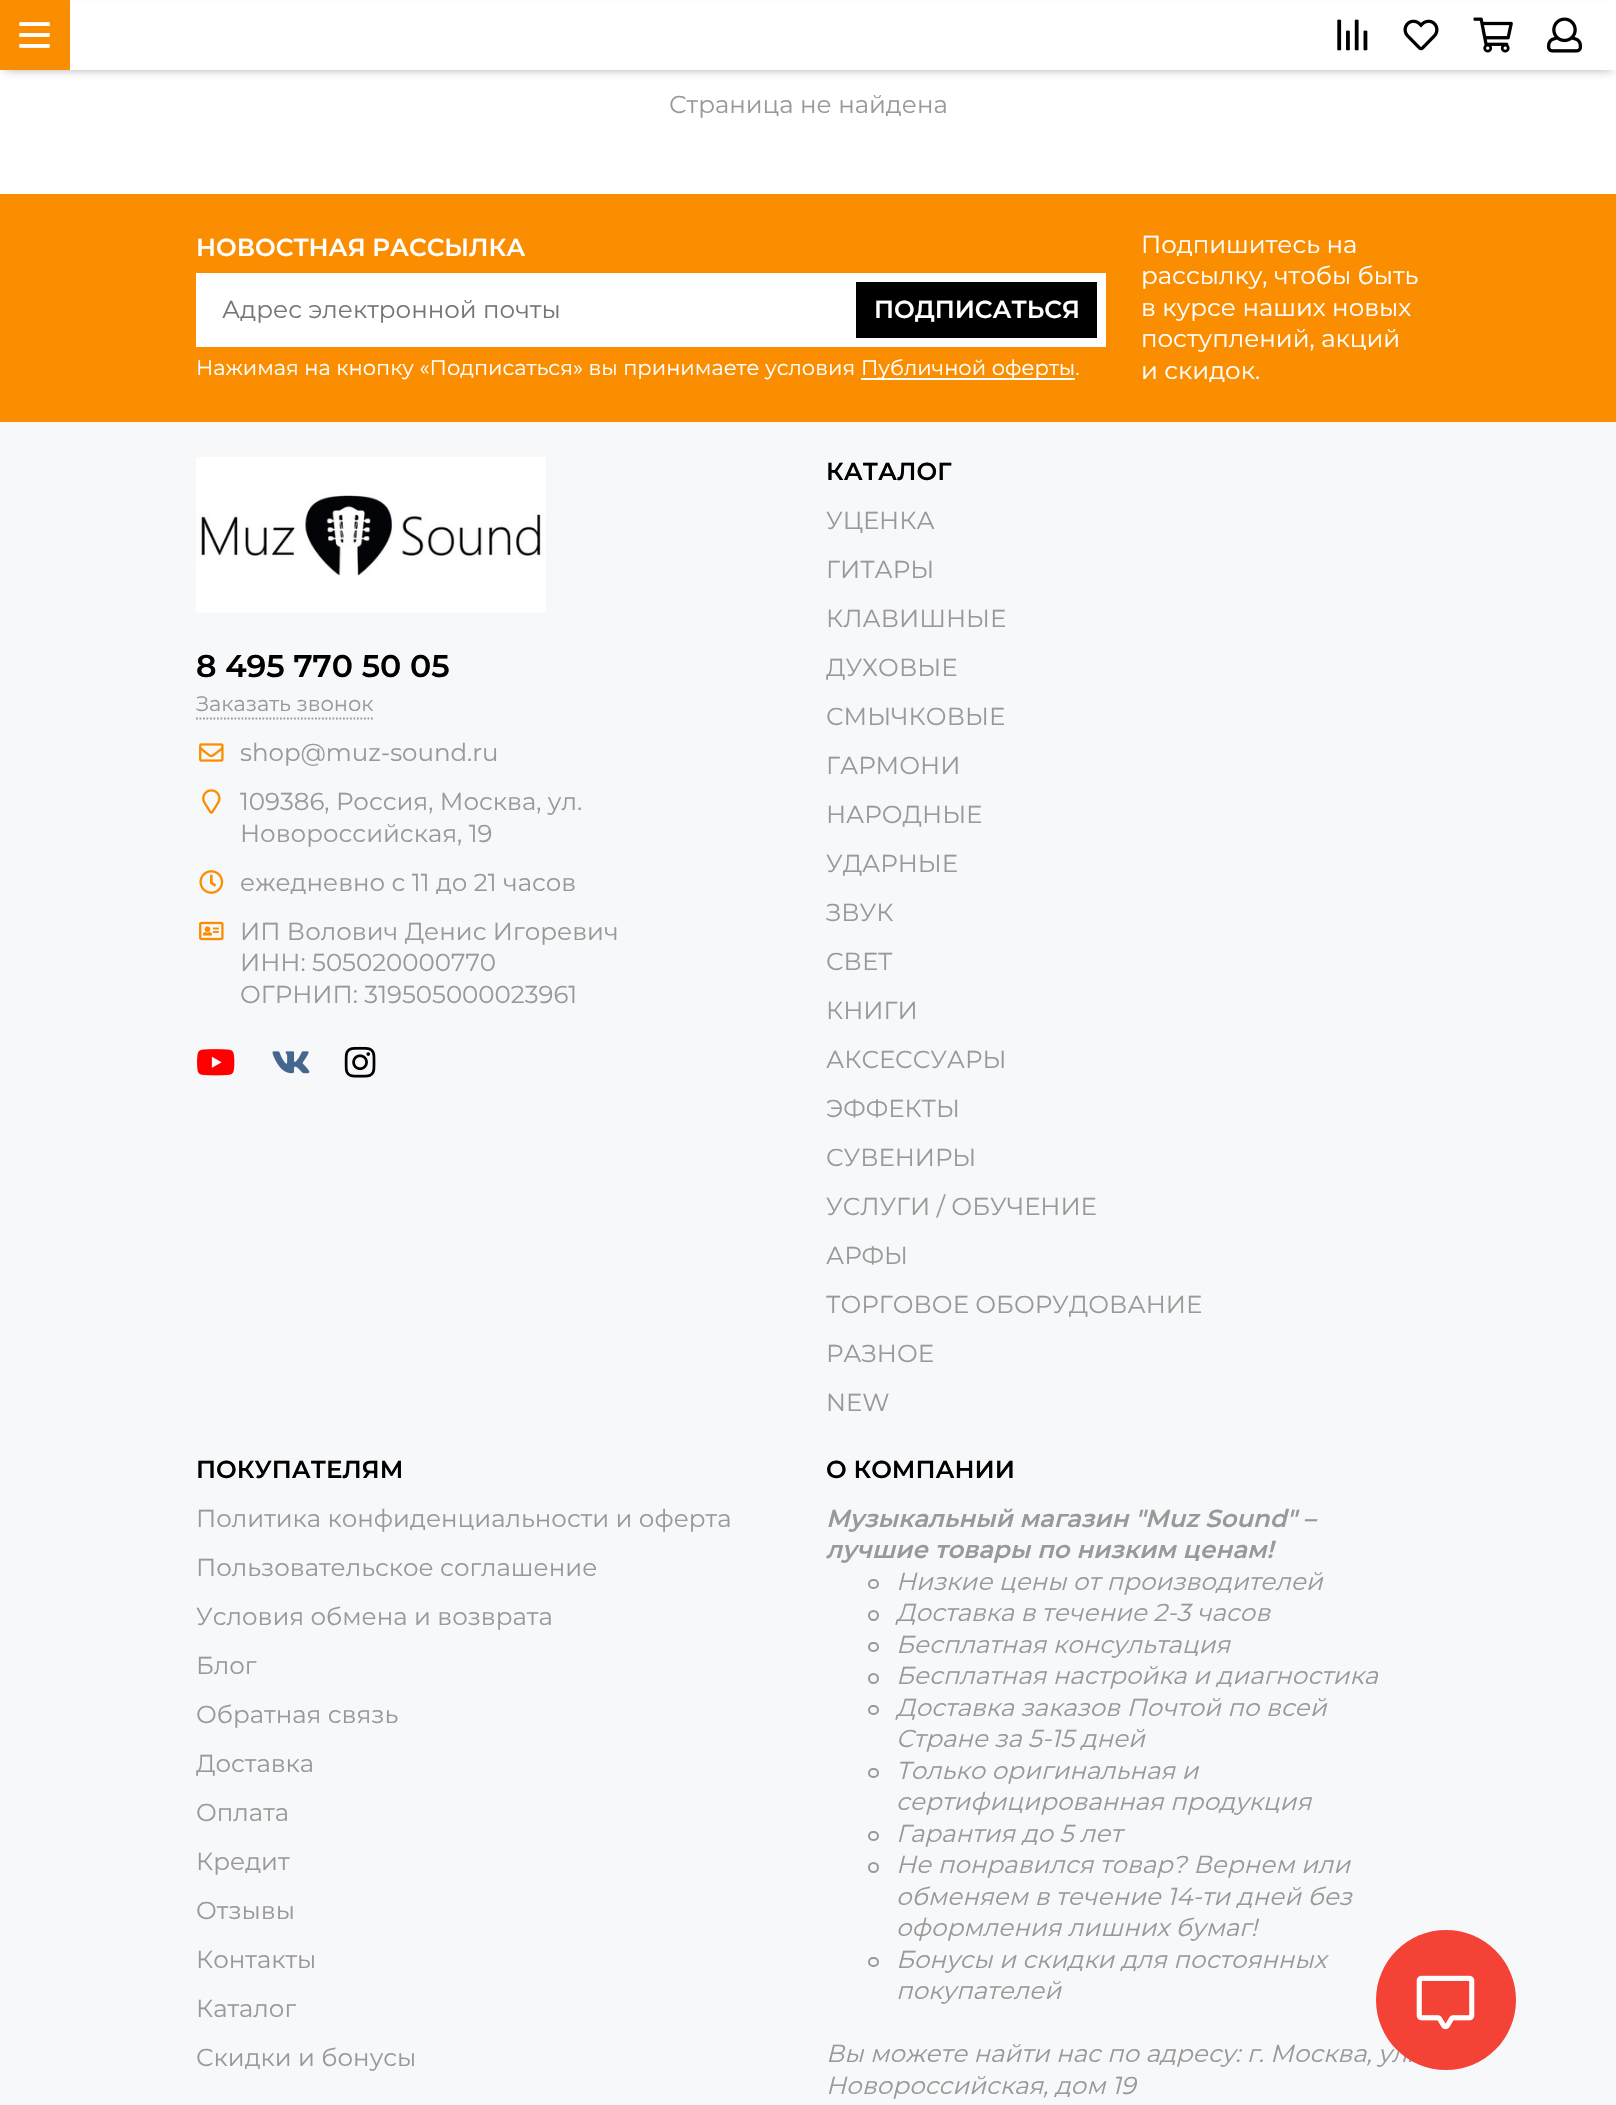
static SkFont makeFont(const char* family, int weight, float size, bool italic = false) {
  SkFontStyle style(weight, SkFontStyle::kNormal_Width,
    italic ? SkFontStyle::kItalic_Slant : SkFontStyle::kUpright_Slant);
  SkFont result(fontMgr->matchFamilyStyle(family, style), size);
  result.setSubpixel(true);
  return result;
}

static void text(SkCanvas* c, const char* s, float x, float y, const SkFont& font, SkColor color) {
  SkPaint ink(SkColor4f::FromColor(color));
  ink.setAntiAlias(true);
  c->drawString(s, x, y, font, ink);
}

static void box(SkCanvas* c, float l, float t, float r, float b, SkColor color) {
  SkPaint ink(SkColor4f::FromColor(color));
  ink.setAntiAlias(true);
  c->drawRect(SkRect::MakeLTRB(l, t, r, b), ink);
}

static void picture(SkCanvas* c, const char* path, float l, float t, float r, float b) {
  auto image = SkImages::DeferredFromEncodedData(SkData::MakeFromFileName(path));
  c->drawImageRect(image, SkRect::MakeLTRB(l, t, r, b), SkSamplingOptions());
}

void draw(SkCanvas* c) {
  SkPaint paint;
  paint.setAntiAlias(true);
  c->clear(0xffffffff);
  paint.setColor(0x4d000000);
  paint.setMaskFilter(SkMaskFilter::MakeBlur(kNormal_SkBlurStyle, 4.5f));
  c->drawRect(SkRect::MakeLTRB(5, 11, 1612, 70), paint);
  paint.setMaskFilter(nullptr);
  box(c, 70, 3, 1616, 70, 0xffffffff);
  box(c, 0, 0, 70, 70, 0xfffa8d00);
  picture(c, "img_01.png", 19, 22, 50, 48);
  picture(c, "img_02.png", 1337, 19, 1368, 51);
  picture(c, "img_03.png", 1403, 19, 1439, 51);
  picture(c, "img_04.png", 1473, 17, 1513, 53);
  picture(c, "img_05.png", 1547, 17, 1582, 53);
  SkFont face1 = makeFont("Montserrat", 400, 24.5f);
  text(c, "Страница не найдена", 669, 113, face1, 0xff999999);
  box(c, 0, 194, 1616, 422, 0xfffa8d00);
  SkFont face2 = makeFont("Montserrat", 600, 24.5f);
  text(c, "НОВОСТНАЯ РАССЫЛКА", 196, 256, face2, 0xffffffff);
  box(c, 196, 273, 1106, 347, 0xffffffff);
  text(c, "Адрес электронной почты", 222, 318, face1, 0xff757575);
  box(c, 856, 282, 1097, 338, 0xff000000);
  text(c, "ПОДПИСАТЬСЯ", 874, 318, face2, 0xffffffff);
  SkFont face3 = makeFont("Montserrat", 400, 21);
  text(c, "Нажимая на кнопку «Подписаться» вы принимаете условия", 196, 375, face3, 0xffffffff);
  box(c, 861, 378, 1075, 380, 0xffffffff);
  text(c, "Публичной оферты.", 861, 375, face3, 0xffffffff);
  text(c, "Подпишитесь на", 1141, 253, face1, 0xffffffff);
  text(c, "рассылку, чтобы быть", 1141, 284, face1, 0xffffffff);
  text(c, "в курсе наших новых", 1141, 316, face1, 0xffffffff);
  text(c, "поступлений, акций", 1141, 347, face1, 0xffffffff);
  text(c, "и скидок.", 1141, 379, face1, 0xffffffff);
  box(c, 0, 422, 1616, 2105, 0xfff7f8fa);
  picture(c, "img_06.png", 196, 457, 546, 613);
  SkFont face4 = makeFont("Montserrat", 600, 31.5f);
  text(c, "8 495 770 50 05", 196, 677, face4, 0xff000000);
  paint.setStyle(SkPaint::kStroke_Style);
  paint.setStrokeWidth(1.8f);
  paint.setColor(0xff999999);
  paint.setPathEffect(SkDashPathEffect::Make({{1.75f, 1.75f}}, 0));
  c->drawPath(SkPathBuilder().moveTo(196, 718.5f).lineTo(373, 718.5f).detach(), paint);
  paint.setPathEffect(nullptr);
  text(c, "Заказать звонок", 196, 711, face3, 0xff999999);
  picture(c, "img_07.png", 199, 743, 224, 762);
  text(c, "shop@muz-sound.ru", 240, 761, face1, 0xff999999);
  picture(c, "img_08.png", 202, 789, 221, 814);
  text(c, "109386, Россия, Москва, ул.", 240, 810, face1, 0xff999999);
  text(c, "Новороссийская, 19", 240, 842, face1, 0xff999999);
  picture(c, "img_09.png", 199, 870, 224, 894);
  text(c, "ежедневно с 11 до 21 часов", 240, 891, face1, 0xff999999);
  picture(c, "img_10.png", 199, 921, 224, 941);
  text(c, "ИП Волович Денис Игоревич", 240, 940, face1, 0xff999999);
  text(c, "ИНН: 505020000770", 240, 971, face1, 0xff999999);
  text(c, "ОГРНИП: 319505000023961", 240, 1003, face1, 0xff999999);
  picture(c, "img_11.png", 197, 1049, 235, 1076);
  picture(c, "img_12.png", 272, 1051, 310, 1074);
  picture(c, "img_13.png", 344, 1046, 376, 1078);
  text(c, "КАТАЛОГ", 826, 480, face2, 0xff000000);
  text(c, "УЦЕНКА", 826, 529, face1, 0xff999999);
  text(c, "ГИТАРЫ", 826, 578, face1, 0xff999999);
  text(c, "КЛАВИШНЫЕ", 826, 627, face1, 0xff999999);
  text(c, "ДУХОВЫЕ", 826, 676, face1, 0xff999999);
  text(c, "СМЫЧКОВЫЕ", 826, 725, face1, 0xff999999);
  text(c, "ГАРМОНИ", 826, 774, face1, 0xff999999);
  text(c, "НАРОДНЫЕ", 826, 823, face1, 0xff999999);
  text(c, "УДАРНЫЕ", 826, 872, face1, 0xff999999);
  text(c, "ЗВУК", 826, 921, face1, 0xff999999);
  text(c, "СВЕТ", 826, 970, face1, 0xff999999);
  text(c, "КНИГИ", 826, 1019, face1, 0xff999999);
  text(c, "АКСЕССУАРЫ", 826, 1068, face1, 0xff999999);
  text(c, "ЭФФЕКТЫ", 826, 1117, face1, 0xff999999);
  text(c, "СУВЕНИРЫ", 826, 1166, face1, 0xff999999);
  text(c, "УСЛУГИ / ОБУЧЕНИЕ", 826, 1215, face1, 0xff999999);
  text(c, "АРФЫ", 826, 1264, face1, 0xff999999);
  text(c, "ТОРГОВОЕ ОБОРУДОВАНИЕ", 826, 1313, face1, 0xff999999);
  text(c, "РАЗНОЕ", 826, 1362, face1, 0xff999999);
  text(c, "NEW", 826, 1411, face1, 0xff999999);
  text(c, "ПОКУПАТЕЛЯМ", 196, 1478, face2, 0xff000000);
  text(c, "Политика конфиденциальности и оферта", 196, 1527, face1, 0xff999999);
  text(c, "Пользовательское соглашение", 196, 1576, face1, 0xff999999);
  text(c, "Условия обмена и возврата", 196, 1625, face1, 0xff999999);
  text(c, "Блог", 196, 1674, face1, 0xff999999);
  text(c, "Обратная связь", 196, 1723, face1, 0xff999999);
  text(c, "Доставка", 196, 1772, face1, 0xff999999);
  text(c, "Оплата", 196, 1821, face1, 0xff999999);
  text(c, "Кредит", 196, 1870, face1, 0xff999999);
  text(c, "Отзывы", 196, 1919, face1, 0xff999999);
  text(c, "Контакты", 196, 1968, face1, 0xff999999);
  text(c, "Каталог", 196, 2017, face1, 0xff999999);
  text(c, "Скидки и бонусы", 196, 2066, face1, 0xff999999);
  text(c, "О КОМПАНИИ", 826, 1478, face2, 0xff000000);
  SkFont face5 = makeFont("Montserrat", 600, 24.5f, true);
  text(c, "Музыкальный магазин \"Muz Sound\" –", 826, 1527, face5, 0xff999999);
  text(c, "лучшие товары по низким ценам!", 826, 1558, face5, 0xff999999);
  paint.setStrokeWidth(2);
  c->drawRoundRect(SkRect::MakeLTRB(869, 1580, 878, 1588), 4, 4, paint);
  SkFont face6 = makeFont("Montserrat", 400, 24.5f, true);
  text(c, "Низкие цены от производителей", 896, 1590, face6, 0xff999999);
  c->drawCircle(873.5f, 1615.5f, 4.5f, paint);
  text(c, "Доставка в течение 2-3 часов", 896, 1621, face6, 0xff999999);
  c->drawRoundRect(SkRect::MakeLTRB(869, 1643, 878, 1651), 4, 4, paint);
  text(c, "Бесплатная консультация", 896, 1653, face6, 0xff999999);
  c->drawCircle(873.5f, 1678.5f, 4.5f, paint);
  text(c, "Бесплатная настройка и диагностика", 896, 1684, face6, 0xff999999);
  c->drawRoundRect(SkRect::MakeLTRB(869, 1706, 878, 1714), 4, 4, paint);
  text(c, "Доставка заказов Почтой по всей", 896, 1716, face6, 0xff999999);
  text(c, "Стране за 5-15 дней", 896, 1747, face6, 0xff999999);
  c->drawRoundRect(SkRect::MakeLTRB(869, 1769, 878, 1777), 4, 4, paint);
  text(c, "Только оригинальная и", 896, 1779, face6, 0xff999999);
  text(c, "сертифицированная продукция", 896, 1810, face6, 0xff999999);
  c->drawRoundRect(SkRect::MakeLTRB(869, 1832, 878, 1840), 4, 4, paint);
  text(c, "Гарантия до 5 лет", 896, 1842, face6, 0xff999999);
  c->drawCircle(873.5f, 1867.5f, 4.5f, paint);
  text(c, "Не понравился товар? Вернем или", 896, 1873, face6, 0xff999999);
  text(c, "обменяем в течение 14-ти дней без", 896, 1905, face6, 0xff999999);
  text(c, "оформления лишних бумаг!", 896, 1936, face6, 0xff999999);
  c->drawRoundRect(SkRect::MakeLTRB(869, 1958, 878, 1966), 4, 4, paint);
  text(c, "Бонусы и скидки для постоянных", 896, 1968, face6, 0xff999999);
  text(c, "покупателей", 896, 1999, face6, 0xff999999);
  text(c, "Вы можете найти нас по адресу: г. Москва, ул.", 826, 2062, face6, 0xff999999);
  text(c, "Новороссийская, дом 19", 826, 2094, face6, 0xff999999);
  paint.setStyle(SkPaint::kFill_Style);
  paint.setColor(0xfff44236);
  c->drawCircle(1446, 2000, 70, paint);
  picture(c, "img_14.png", 1416, 1975, 1475, 2030);
}
